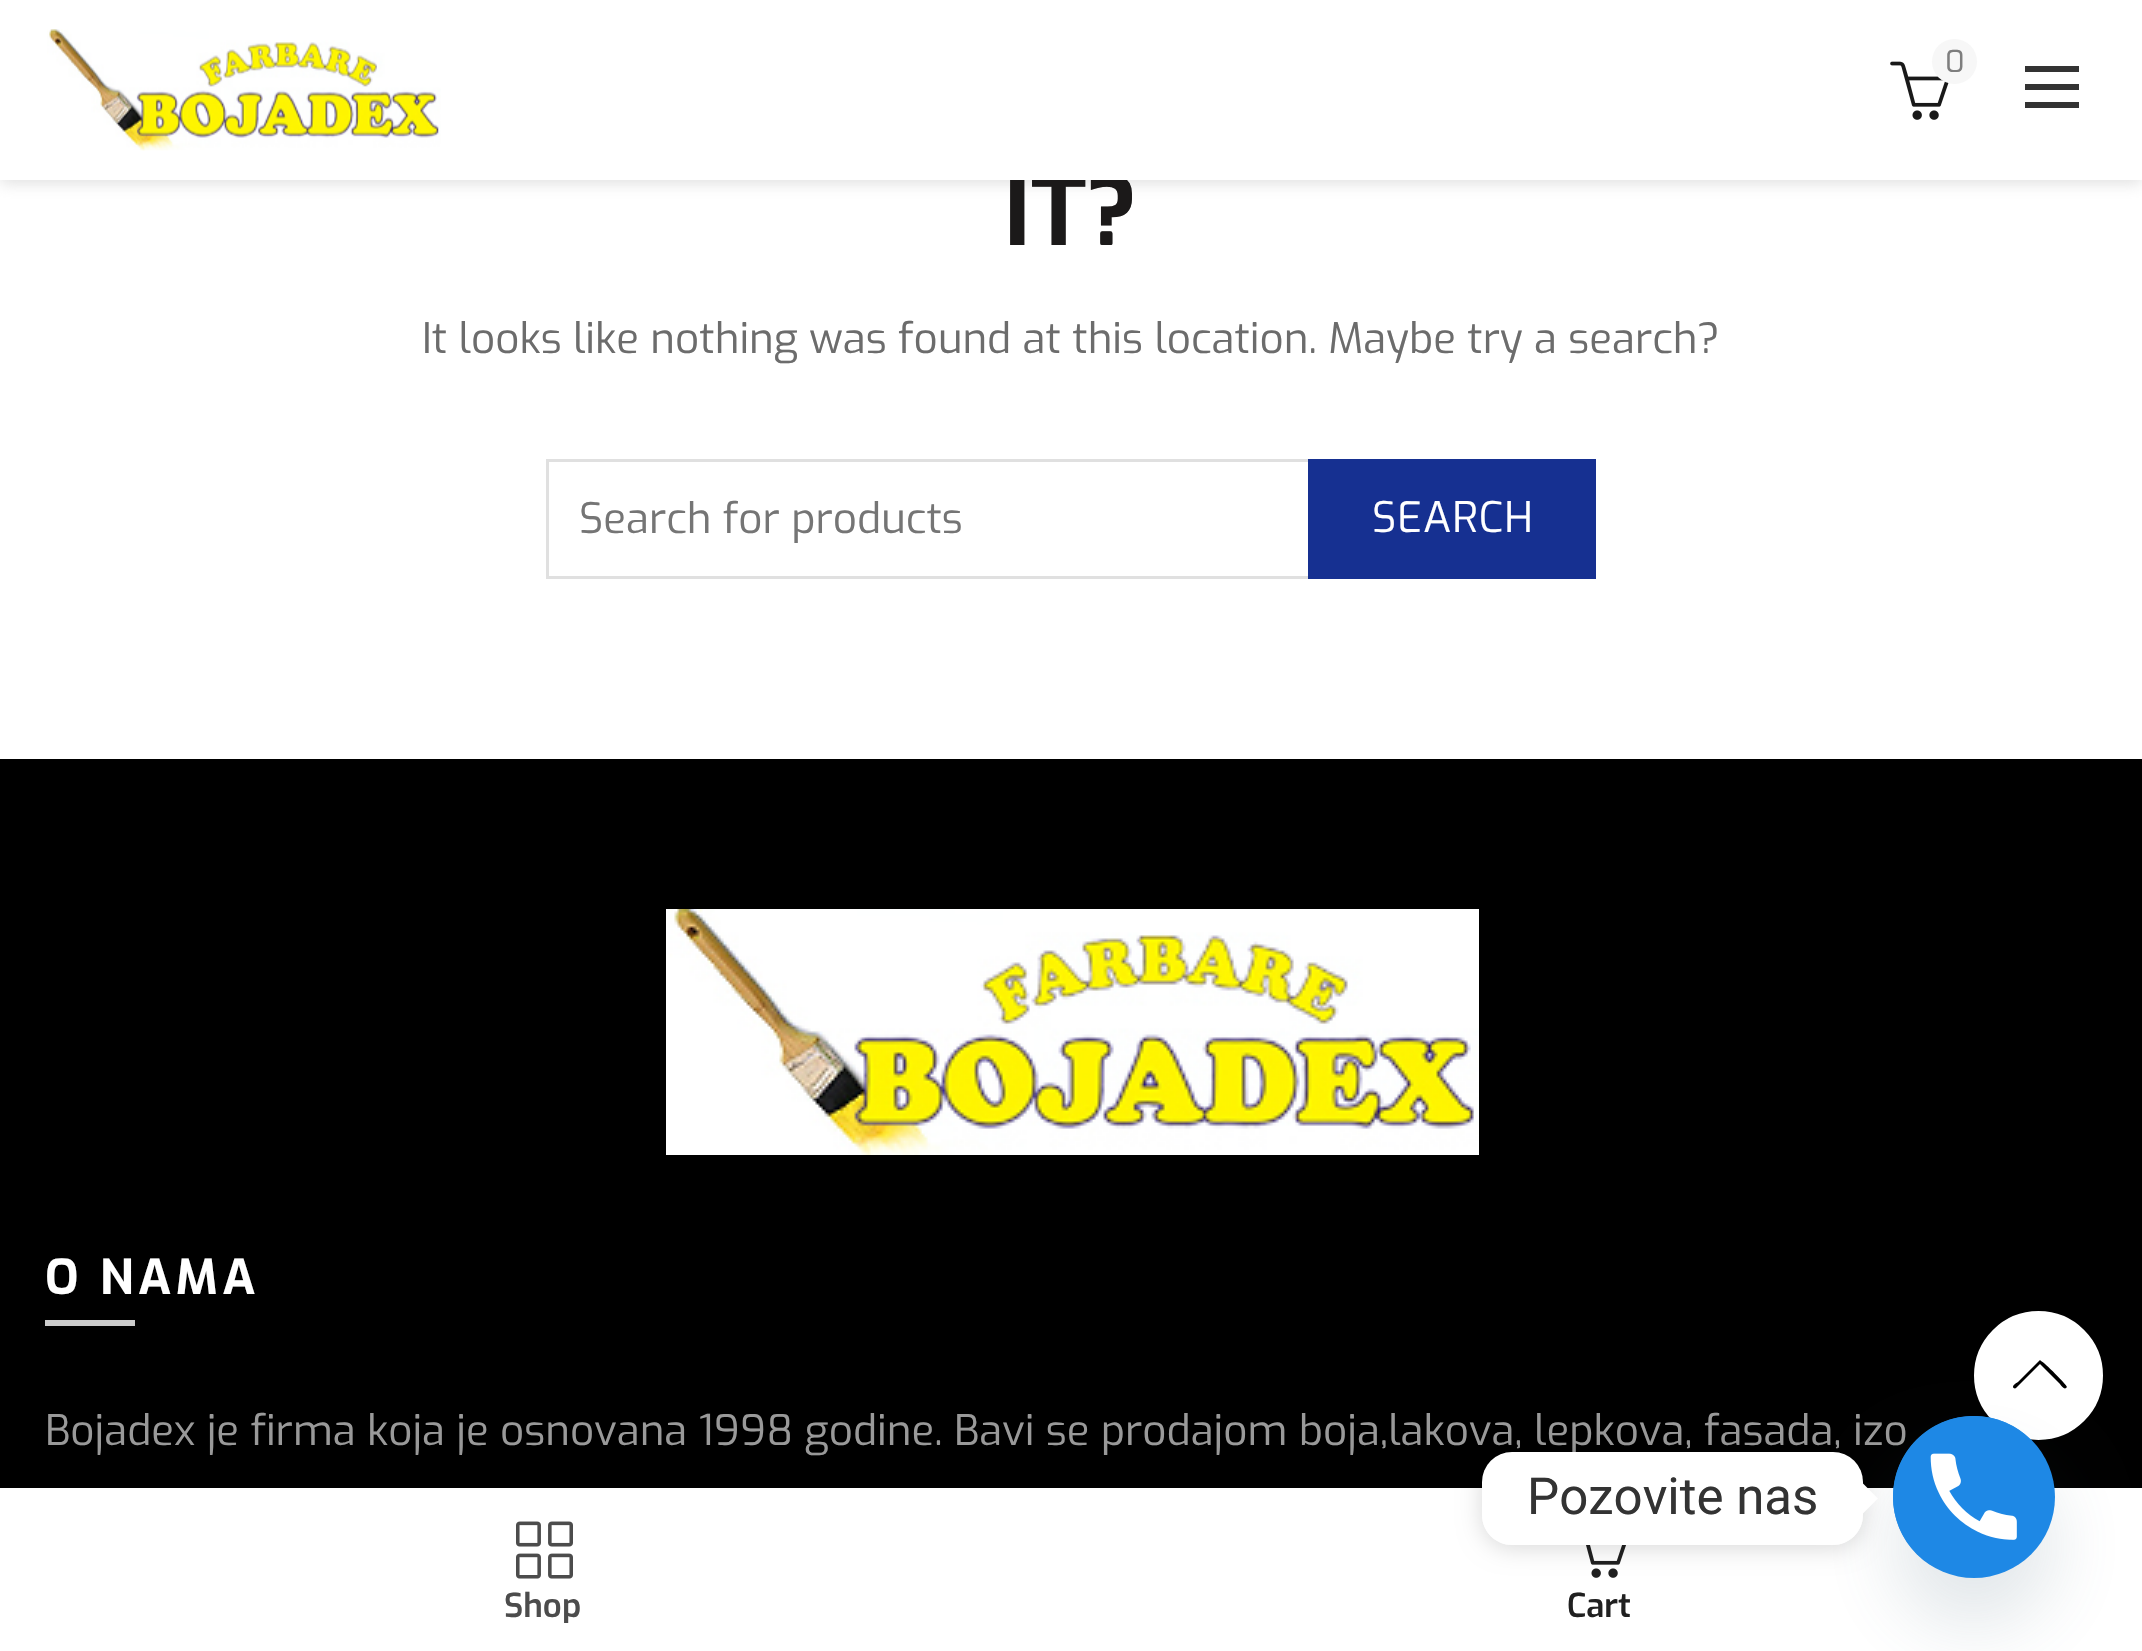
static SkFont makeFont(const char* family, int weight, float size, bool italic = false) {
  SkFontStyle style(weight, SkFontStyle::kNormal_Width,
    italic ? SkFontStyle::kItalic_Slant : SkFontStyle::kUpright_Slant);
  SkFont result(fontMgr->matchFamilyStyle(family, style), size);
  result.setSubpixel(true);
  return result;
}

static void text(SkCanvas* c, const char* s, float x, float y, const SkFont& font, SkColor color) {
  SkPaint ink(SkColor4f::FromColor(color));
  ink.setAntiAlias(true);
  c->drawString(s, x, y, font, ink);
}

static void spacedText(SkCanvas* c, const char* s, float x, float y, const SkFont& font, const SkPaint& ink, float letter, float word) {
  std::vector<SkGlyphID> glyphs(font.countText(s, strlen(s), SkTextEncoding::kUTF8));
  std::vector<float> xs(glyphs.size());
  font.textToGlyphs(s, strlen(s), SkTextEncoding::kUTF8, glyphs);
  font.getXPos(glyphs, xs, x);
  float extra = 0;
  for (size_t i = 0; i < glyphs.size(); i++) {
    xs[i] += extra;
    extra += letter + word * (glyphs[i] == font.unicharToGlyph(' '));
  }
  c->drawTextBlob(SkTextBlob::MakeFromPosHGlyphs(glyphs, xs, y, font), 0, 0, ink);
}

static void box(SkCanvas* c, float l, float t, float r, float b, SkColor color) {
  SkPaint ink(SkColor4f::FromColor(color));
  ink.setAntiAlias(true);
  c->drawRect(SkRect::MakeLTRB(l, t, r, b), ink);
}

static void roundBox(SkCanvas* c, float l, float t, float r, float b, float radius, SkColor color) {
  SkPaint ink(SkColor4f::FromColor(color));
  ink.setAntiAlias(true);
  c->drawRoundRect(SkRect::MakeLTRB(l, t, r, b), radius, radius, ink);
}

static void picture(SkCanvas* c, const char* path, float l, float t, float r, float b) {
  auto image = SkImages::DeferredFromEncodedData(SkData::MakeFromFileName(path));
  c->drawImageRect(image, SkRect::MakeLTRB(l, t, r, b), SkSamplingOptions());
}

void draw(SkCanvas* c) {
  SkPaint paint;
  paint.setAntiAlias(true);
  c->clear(0xffffffff);
  paint.setColor(0x80bebebe);
  paint.setMaskFilter(SkMaskFilter::MakeBlur(kNormal_SkBlurStyle, 7.5f));
  c->drawRect(SkRect::MakeLTRB(0, 3, 2142, 183), paint);
  paint.setMaskFilter(nullptr);
  SkFont face1 = makeFont("Exo", 700, 96);
  text(c, "IT?", 1004, 245, face1, 0xff1b1919);
  box(c, 0, 0, 2142, 180, 0xffffffff);
  picture(c, "img_01.png", 47, 29, 441, 151);
  picture(c, "img_02.png", 1890, 61, 1949, 120);
  paint.setColor(0xfff7f7f7);
  c->drawCircle(1954.5f, 61.5f, 22.5f, paint);
  SkFont face2 = makeFont("Exo", 400, 30);
  text(c, "0", 1945, 72, face2, 0xff7e7e7e);
  box(c, 2025, 84, 2079, 90, 0xff333333);
  box(c, 2025, 66, 2079, 72, 0xff333333);
  box(c, 2025, 102, 2079, 108, 0xff333333);
  SkFont face3 = makeFont("Exo", 400, 42);
  text(c, "It looks like nothing was found at this location. Maybe try a search?", 422, 353, face3, 0xff6c6c6c);
  paint.setStyle(SkPaint::kStroke_Style);
  paint.setStrokeWidth(3);
  paint.setColor(0xffe0e0e0);
  c->drawRect(SkRect::MakeLTRB(547.5f, 460.5f, 1594.5f, 577.5f), paint);
  text(c, "Search for products", 579, 533, face3, 0xff757575);
  box(c, 1308, 459, 1596, 579, 0xff163091);
  paint.setStyle(SkPaint::kFill_Style);
  paint.setColor(0xffffffff);
  spacedText(c, "SEARCH", 1372, 532, face3, paint, 1, 0);
  box(c, 0, 759, 2142, 1488, 0xff000000);
  picture(c, "img_03.png", 666, 909, 1479, 1155);
  SkFont face4 = makeFont("Exo", 700, 48);
  spacedText(c, "O NAMA", 45, 1294, face4, paint, 4.5f, 0);
  box(c, 45, 1320, 135, 1326, 0xffcccccc);
  text(c, "Bojadex je firma koja je osnovana 1998 godine. Bavi se prodajom boja,lakova, lepkova, fasada, izo", 45, 1445, face3, 0xff999999);
  c->drawCircle(2038.5f, 1375.5f, 66, paint);
  paint.setStyle(SkPaint::kStroke_Style);
  paint.setColor(0xff000000);
  c->drawCircle(2038.5f, 1375.5f, 66, paint);
  paint.setStyle(SkPaint::kFill_Style);
  c->drawPath(SkPathBuilder().moveTo(2013, 1387).cubicTo(2013, 1388, 2015, 1389, 2016, 1388).lineTo(2040, 1364).lineTo(2060, 1384).cubicTo(2060, 1384, 2064, 1390, 2066, 1388).lineTo(2067, 1387).cubicTo(2067, 1385, 2044, 1362, 2041, 1361).lineTo(2040, 1360).lineTo(2018, 1382).cubicTo(2016, 1383, 2013, 1385, 2013, 1387).close().detach(), paint);
  paint.setColor(0x1f000000);
  paint.setMaskFilter(SkMaskFilter::MakeBlur(kNormal_SkBlurStyle, 13.5f));
  c->drawRect(SkRect::MakeLTRB(0, 1488, 2142, 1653), paint);
  paint.setMaskFilter(nullptr);
  box(c, 0, 1488, 2142, 1651, 0xffffffff);
  paint.setColor(0x2949687e);
  paint.setMaskFilter(SkMaskFilter::MakeBlur(kNormal_SkBlurStyle, 36));
  c->drawRoundRect(SkRect::MakeLTRB(1893, 1464, 2055, 1626), 81, 81, paint);
  paint.setMaskFilter(nullptr);
  paint.setColor(0xff1e88e5);
  c->drawCircle(1974, 1497, 81, paint);
  picture(c, "img_04.png", 1893, 1416, 2043, 1566);
  picture(c, "img_06.png", 1586, 1545, 1626, 1578);
  c->save();
  c->clipPath(SkPathBuilder(SkPathFillType::kEvenOdd).moveTo(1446, 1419).lineTo(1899, 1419).lineTo(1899, 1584).lineTo(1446, 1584).close().moveTo(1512, 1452).lineTo(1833, 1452).cubicTo(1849.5f, 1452, 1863, 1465.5f, 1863, 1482).lineTo(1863, 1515).cubicTo(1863, 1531.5f, 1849.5f, 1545, 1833, 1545).lineTo(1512, 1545).cubicTo(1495.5f, 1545, 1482, 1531.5f, 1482, 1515).lineTo(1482, 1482).cubicTo(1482, 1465.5f, 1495.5f, 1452, 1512, 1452).close().detach(), true);
  paint.setColor(0x26000000);
  paint.setMaskFilter(SkMaskFilter::MakeBlur(kNormal_SkBlurStyle, 11.5f));
  c->drawRoundRect(SkRect::MakeLTRB(1482, 1455, 1863, 1548), 30, 30, paint);
  paint.setMaskFilter(nullptr);
  c->restore();
  roundBox(c, 1482, 1452, 1863, 1545, 30, 0xffffffff);
  SkFont face5 = makeFont("Roboto", 400, 51);
  text(c, "Pozovite nas", 1527, 1514, face5, 0xff333333);
  paint.setColor(0xffffffff);
  c->drawPath(SkPathBuilder().moveTo(1863, 1513.5f).lineTo(1863, 1483.5f).lineTo(1878, 1498.5f).close().detach(), paint);
  picture(c, "img_05.png", 516, 1521, 573, 1579);
  c->save();
  c->clipRect(SkRect::MakeLTRB(45, 1590, 1041, 1623));
  SkFont face6 = makeFont("Exo", 600, 33);
  text(c, "Shop", 504, 1617, face6, 0xff4c4c4c);
  c->restore();
  text(c, "Cart", 1567, 1617, face6, 0xff202020);
}
